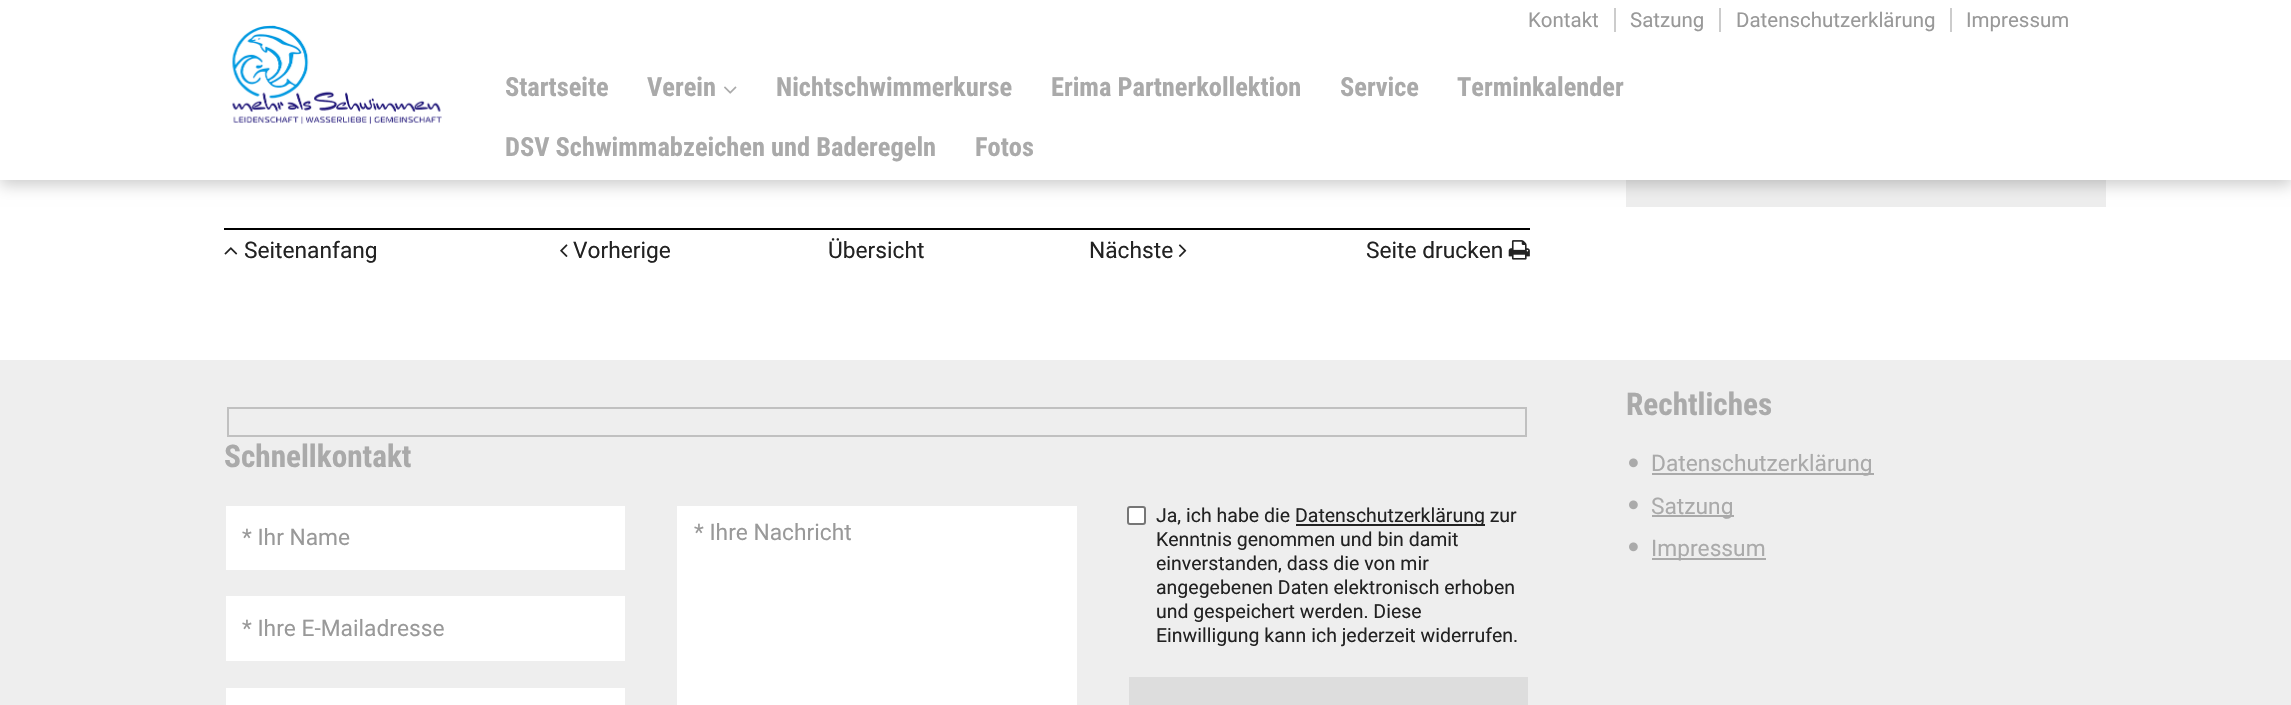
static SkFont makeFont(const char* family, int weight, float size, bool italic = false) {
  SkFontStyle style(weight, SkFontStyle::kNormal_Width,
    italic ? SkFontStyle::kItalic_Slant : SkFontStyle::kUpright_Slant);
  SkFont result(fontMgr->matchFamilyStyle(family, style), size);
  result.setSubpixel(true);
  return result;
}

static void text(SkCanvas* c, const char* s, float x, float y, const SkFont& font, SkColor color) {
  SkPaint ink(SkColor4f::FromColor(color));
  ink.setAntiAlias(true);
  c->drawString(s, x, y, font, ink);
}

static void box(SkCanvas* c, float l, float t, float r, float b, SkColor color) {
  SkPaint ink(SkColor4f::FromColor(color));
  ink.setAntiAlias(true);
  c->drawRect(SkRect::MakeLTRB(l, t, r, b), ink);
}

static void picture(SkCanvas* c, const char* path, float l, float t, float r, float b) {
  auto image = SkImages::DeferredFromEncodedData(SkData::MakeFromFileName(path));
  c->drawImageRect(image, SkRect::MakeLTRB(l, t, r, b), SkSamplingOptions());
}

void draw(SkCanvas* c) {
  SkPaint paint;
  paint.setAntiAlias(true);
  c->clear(0xffffffff);
  box(c, 1626, 180, 2106, 207, 0xffeeeeee);
  paint.setColor(0x33000000);
  paint.setMaskFilter(SkMaskFilter::MakeBlur(kNormal_SkBlurStyle, 7.5f));
  c->drawRect(SkRect::MakeLTRB(0, 5, 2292, 185), paint);
  paint.setMaskFilter(nullptr);
  box(c, 0, 0, 2291, 180, 0xffffffff);
  picture(c, "img_01.png", 232, 25, 442, 125);
  SkFont face1 = makeFont("Roboto", 400, 20.5f);
  text(c, "Kontakt", 1528, 27, face1, 0xff999999);
  box(c, 1614, 8, 1616, 32, 0xffcccccc);
  text(c, "Satzung", 1630, 27, face1, 0xff999999);
  box(c, 1719, 8, 1721, 32, 0xffcccccc);
  text(c, "Datenschutzerklärung", 1736, 27, face1, 0xff999999);
  box(c, 1950, 8, 1952, 32, 0xffcccccc);
  text(c, "Impressum", 1966, 27, face1, 0xff999999);
  SkFont face2 = makeFont("Roboto Condensed", 700, 26.4f);
  text(c, "Startseite", 505, 96, face2, 0xffaaaaaa);
  text(c, "Verein", 647, 96, face2, 0xffaaaaaa);
  picture(c, "img_02.png", 724, 86, 737, 94);
  text(c, "Nichtschwimmerkurse", 776, 96, face2, 0xffaaaaaa);
  text(c, "Erima Partnerkollektion", 1051, 96, face2, 0xffaaaaaa);
  text(c, "Service", 1340, 96, face2, 0xffaaaaaa);
  text(c, "Terminkalender", 1457, 96, face2, 0xffaaaaaa);
  text(c, "DSV Schwimmabzeichen und Baderegeln", 505, 156, face2, 0xffaaaaaa);
  text(c, "Fotos", 975, 156, face2, 0xffaaaaaa);
  box(c, 224, 228, 1530, 230, 0xff000000);
  picture(c, "img_03.png", 224, 247, 238, 255);
  SkFont face3 = makeFont("Roboto", 400, 22.75f);
  text(c, "Seitenanfang", 244, 258, face3, 0xff222222);
  picture(c, "img_04.png", 560, 244, 568, 257);
  text(c, "Vorherige", 573, 258, face3, 0xff222222);
  text(c, "Übersicht", 828, 258, face3, 0xff222222);
  text(c, "Nächste", 1089, 258, face3, 0xff222222);
  picture(c, "img_05.png", 1178, 244, 1187, 257);
  text(c, "Seite drucken", 1366, 258, face3, 0xff222222);
  picture(c, "img_06.png", 1508, 240, 1530, 260);
  box(c, 0, 360, 2291, 705, 0xffeeeeee);
  paint.setStyle(SkPaint::kStroke_Style);
  paint.setStrokeWidth(2);
  paint.setColor(0xffc0c0c0);
  c->drawRect(SkRect::MakeLTRB(228, 408, 1526, 436), paint);
  SkFont face4 = makeFont("Roboto Condensed", 700, 31.25f);
  text(c, "Schnellkontakt", 224, 467, face4, 0xffaaaaaa);
  box(c, 226, 506, 625, 570, 0xffffffff);
  text(c, "* Ihr Name", 242, 545, face3, 0xff999999);
  box(c, 226, 596, 625, 661, 0xffffffff);
  text(c, "* Ihre E-Mailadresse", 242, 636, face3, 0xff999999);
  box(c, 226, 688, 625, 705, 0xffffffff);
  box(c, 677, 506, 1077, 705, 0xffffffff);
  text(c, "* Ihre Nachricht", 694, 540, face3, 0xff999999);
  paint.setStyle(SkPaint::kFill_Style);
  paint.setColor(0xffffffff);
  c->drawRoundRect(SkRect::MakeLTRB(1128, 507, 1145, 524), 2, 2, paint);
  paint.setStyle(SkPaint::kStroke_Style);
  paint.setColor(0xff767676);
  c->drawRoundRect(SkRect::MakeLTRB(1128, 507, 1145, 524), 2, 2, paint);
  SkFont face5 = makeFont("Roboto", 400, 19.5f);
  text(c, "Ja, ich habe die", 1156, 522, face5, 0xff222222);
  box(c, 1296, 524, 1485, 526, 0xff222222);
  text(c, "Datenschutzerklärung zur", 1295, 522, face5, 0xff222222);
  text(c, "Kenntnis genommen und bin damit", 1156, 546, face5, 0xff222222);
  text(c, "einverstanden, dass die von mir", 1156, 570, face5, 0xff222222);
  text(c, "angegebenen Daten elektronisch erhoben", 1156, 594, face5, 0xff222222);
  text(c, "und gespeichert werden. Diese", 1156, 618, face5, 0xff222222);
  text(c, "Einwilligung kann ich jederzeit widerrufen.", 1156, 642, face5, 0xff222222);
  box(c, 1129, 677, 1528, 705, 0xffdddddd);
  text(c, "Rechtliches", 1626, 415, face4, 0xffaaaaaa);
  picture(c, "img_07.png", 1629, 458, 1638, 468);
  box(c, 1652, 473, 1874, 475, 0xffaaaaaa);
  text(c, "Datenschutzerklärung", 1651, 471, face3, 0xffaaaaaa);
  picture(c, "img_07.png", 1629, 500, 1638, 510);
  box(c, 1652, 515, 1734, 517, 0xffaaaaaa);
  text(c, "Satzung", 1651, 514, face3, 0xffaaaaaa);
  picture(c, "img_07.png", 1629, 542, 1638, 552);
  box(c, 1652, 558, 1766, 560, 0xffaaaaaa);
  text(c, "Impressum", 1651, 556, face3, 0xffaaaaaa);
}
